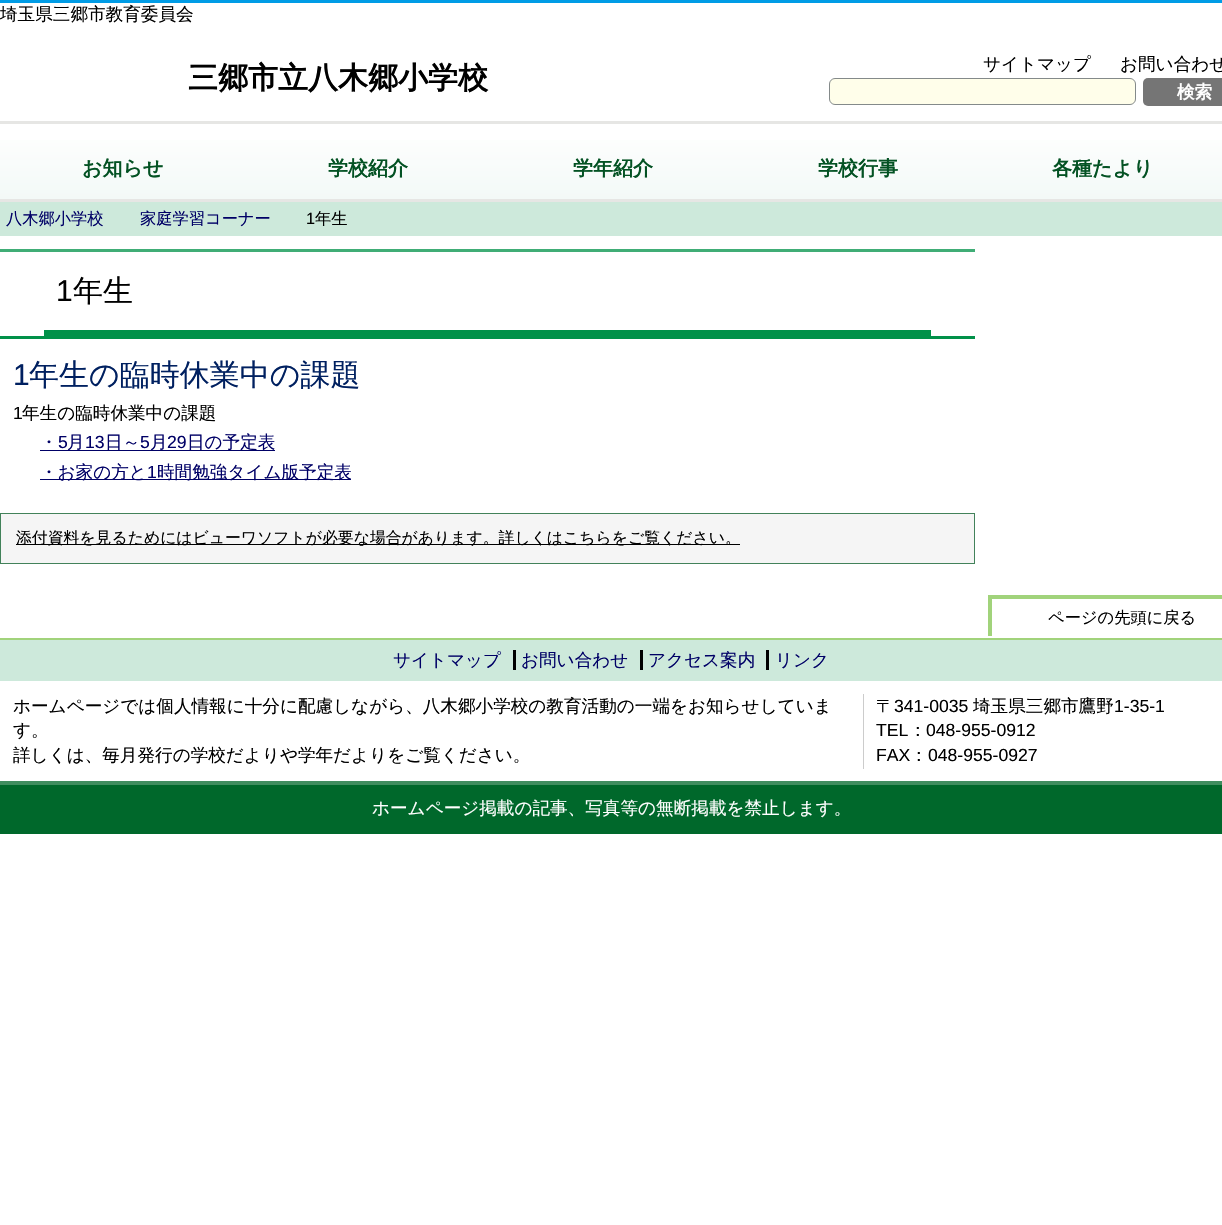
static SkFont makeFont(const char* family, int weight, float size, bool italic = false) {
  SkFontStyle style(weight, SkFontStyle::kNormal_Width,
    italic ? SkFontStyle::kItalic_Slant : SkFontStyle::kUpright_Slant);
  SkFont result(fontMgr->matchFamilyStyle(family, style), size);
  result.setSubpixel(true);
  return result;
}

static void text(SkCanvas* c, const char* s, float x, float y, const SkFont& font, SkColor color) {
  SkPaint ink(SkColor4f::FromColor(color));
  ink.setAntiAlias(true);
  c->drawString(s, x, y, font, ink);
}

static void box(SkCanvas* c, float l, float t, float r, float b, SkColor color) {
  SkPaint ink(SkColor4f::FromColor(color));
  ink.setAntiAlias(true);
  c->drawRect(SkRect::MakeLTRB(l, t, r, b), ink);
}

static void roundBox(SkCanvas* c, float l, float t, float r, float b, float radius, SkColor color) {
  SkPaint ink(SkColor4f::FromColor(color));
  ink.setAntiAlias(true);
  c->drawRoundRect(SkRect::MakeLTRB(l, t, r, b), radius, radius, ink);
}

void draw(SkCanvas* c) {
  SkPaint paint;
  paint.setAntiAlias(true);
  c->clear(0xffffffff);
  box(c, 0, 0, 1222, 3, 0xff009ce6);
  SkFont face1 = makeFont("WenQuanYi Zen Hei", 500, 17.6f);
  text(c, "埼玉県三郷市教育委員会", 0, 20, face1, 0xff000000);
  SkFont face2 = makeFont("WenQuanYi Zen Hei", 700, 30);
  text(c, "三郷市立八木郷小学校", 188, 88, face2, 0xff000000);
  text(c, "サイトマップ", 983, 70, face1, 0xff000000);
  text(c, "お問い合わせ", 1120, 70, face1, 0xff000000);
  paint.setColor(0xfffffeea);
  c->drawRoundRect(SkRect::MakeLTRB(829.5f, 78.5f, 1135.5f, 104.5f), 5.5f, 5.5f, paint);
  paint.setStyle(SkPaint::kStroke_Style);
  paint.setStrokeWidth(1);
  paint.setColor(0xff848a8a);
  c->drawRoundRect(SkRect::MakeLTRB(829.5f, 78.5f, 1135.5f, 104.5f), 5.5f, 5.5f, paint);
  roundBox(c, 1143, 78, 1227, 106, 5, 0xff757575);
  SkFont face3 = makeFont("WenQuanYi Zen Hei", 700, 17.6f);
  text(c, "検索", 1177, 98, face3, 0xffffffff);
  paint.setStyle(SkPaint::kFill_Style);
  {
    const SkColor colors[] = {0xffffffff, 0xfff3f9f7};
    const float stops[] = {0, 1};
    const SkPoint ends[] = {{611, 124}, {611, 199}};
    paint.setShader(SkGradientShader::MakeLinear(ends, colors, stops, 2, SkTileMode::kClamp));
    paint.setAlpha(255);
  }
  c->drawRect(SkRect::MakeLTRB(0, 140, 1222, 199), paint);
  box(c, 0, 121, 1222, 124, 0xffe6e6e4);
  box(c, 0, 199, 1222, 202, 0xffe6e6e4);
  SkFont face4 = makeFont("WenQuanYi Zen Hei", 700, 20);
  text(c, "お知らせ", 82, 175, face4, 0xff035223);
  text(c, "学校紹介", 328, 175, face4, 0xff035223);
  text(c, "学年紹介", 573, 175, face4, 0xff035223);
  text(c, "学校行事", 818, 175, face4, 0xff035223);
  text(c, "各種たより", 1052, 175, face4, 0xff035223);
  box(c, 0, 202, 1222, 236, 0xffcde9db);
  SkFont face5 = makeFont("WenQuanYi Zen Hei", 500, 16.25f);
  text(c, "八木郷小学校", 6, 224, face5, 0xff000066);
  text(c, "家庭学習コーナー", 140, 224, face5, 0xff000066);
  SkFont face6 = makeFont("Liberation Sans", 400, 16.25f);
  text(c, "1", 306, 224, face6, 0xff000000);
  text(c, "年生", 315, 224, face5, 0xff000000);
  box(c, 0, 249, 975, 252, 0xff40ad76);
  box(c, 0, 336, 975, 339, 0xff019149);
  box(c, 44, 330, 931, 336, 0xff019149);
  SkFont face7 = makeFont("Liberation Sans", 400, 30);
  text(c, "1", 56, 301, face7, 0xff000000);
  SkFont face8 = makeFont("WenQuanYi Zen Hei", 500, 30);
  text(c, "年生", 73, 301, face8, 0xff000000);
  text(c, "1", 13, 385, face7, 0xff002060);
  text(c, "年生の臨時休業中の課題", 29, 385, face8, 0xff002060);
  SkFont face9 = makeFont("Liberation Sans", 400, 17.6f);
  text(c, "1", 13, 419, face9, 0xff000000);
  text(c, "年生の臨時休業中の課題", 22, 419, face1, 0xff000000);
  text(c, "・", 40, 448, face1, 0xff000066);
  text(c, "5", 58, 448, face9, 0xff000066);
  box(c, 40, 450, 275, 451, 0xff000066);
  text(c, "月", 67, 448, face1, 0xff000066);
  text(c, "13", 85, 448, face9, 0xff000066);
  text(c, "日～", 105, 448, face1, 0xff000066);
  text(c, "5", 140, 448, face9, 0xff000066);
  text(c, "月", 150, 448, face1, 0xff000066);
  text(c, "29", 167, 448, face9, 0xff000066);
  text(c, "日の予定表", 187, 448, face1, 0xff000066);
  box(c, 40, 479, 351, 480, 0xff000066);
  text(c, "・お家の方と", 40, 478, face1, 0xff000066);
  text(c, "1", 147, 478, face9, 0xff000066);
  text(c, "時間勉強タイム版予定表", 157, 478, face1, 0xff000066);
  paint.setShader(nullptr);
  paint.setColor(0xfff5f5f5);
  c->drawRect(SkRect::MakeLTRB(0.5f, 513.5f, 974.5f, 563.5f), paint);
  paint.setStyle(SkPaint::kStroke_Style);
  paint.setColor(0xff42825a);
  c->drawRect(SkRect::MakeLTRB(0.5f, 513.5f, 974.5f, 563.5f), paint);
  box(c, 16, 544, 740, 545, 0xff000000);
  SkFont face10 = makeFont("WenQuanYi Zen Hei", 500, 15.85f);
  text(c, "添付資料を見るためにはビューワソフトが必要な場合があります。詳しくはこちらをご覧ください。", 16, 543, face10, 0xff000000);
  box(c, 988, 595, 1222, 599, 0xffa1d37b);
  box(c, 988, 595, 992, 636, 0xffa1d37b);
  text(c, "ページの先頭に戻る", 1048, 623, face5, 0xff000000);
  box(c, 0, 638, 1222, 640, 0xffa1d37b);
  box(c, 0, 640, 1222, 681, 0xffcde9db);
  text(c, "サイトマップ", 393, 666, face1, 0xff000066);
  text(c, "お問い合わせ", 521, 666, face1, 0xff000066);
  box(c, 513, 650, 516, 670, 0xff000000);
  text(c, "アクセス案内", 648, 666, face1, 0xff000066);
  box(c, 640, 650, 643, 670, 0xff000000);
  text(c, "リンク", 775, 666, face1, 0xff000066);
  box(c, 766, 650, 769, 670, 0xff000000);
  text(c, "ホームページでは個人情報に十分に配慮しながら、八木郷小学校の教育活動の一端をお知らせしていま", 13, 712, face1, 0xff000000);
  text(c, "す。", 13, 736, face1, 0xff000000);
  text(c, "詳しくは、毎月発行の学校だよりや学年だよりをご覧ください。", 13, 761, face1, 0xff000000);
  box(c, 863, 694, 864, 769, 0xffcccccc);
  text(c, "〒", 876, 712, face1, 0xff000000);
  text(c, "341-0035", 894, 712, face9, 0xff000000);
  text(c, "埼玉県三郷市鷹野", 973, 712, face1, 0xff000000);
  text(c, "1-35-1", 1114, 712, face9, 0xff000000);
  text(c, "TEL", 876, 736, face9, 0xff000000);
  text(c, "：", 909, 736, face1, 0xff000000);
  text(c, "048-955-0912", 926, 736, face9, 0xff000000);
  text(c, "FAX", 876, 761, face9, 0xff000000);
  text(c, "：", 910, 761, face1, 0xff000000);
  text(c, "048-955-0927", 928, 761, face9, 0xff000000);
  box(c, 0, 785, 1222, 834, 0xff00682b);
  box(c, 0, 781, 1222, 785, 0xff408d5f);
  text(c, "ホームページ掲載の記事、写真等の無断掲載を禁止します。", 372, 814, face1, 0xffffffff);
}
